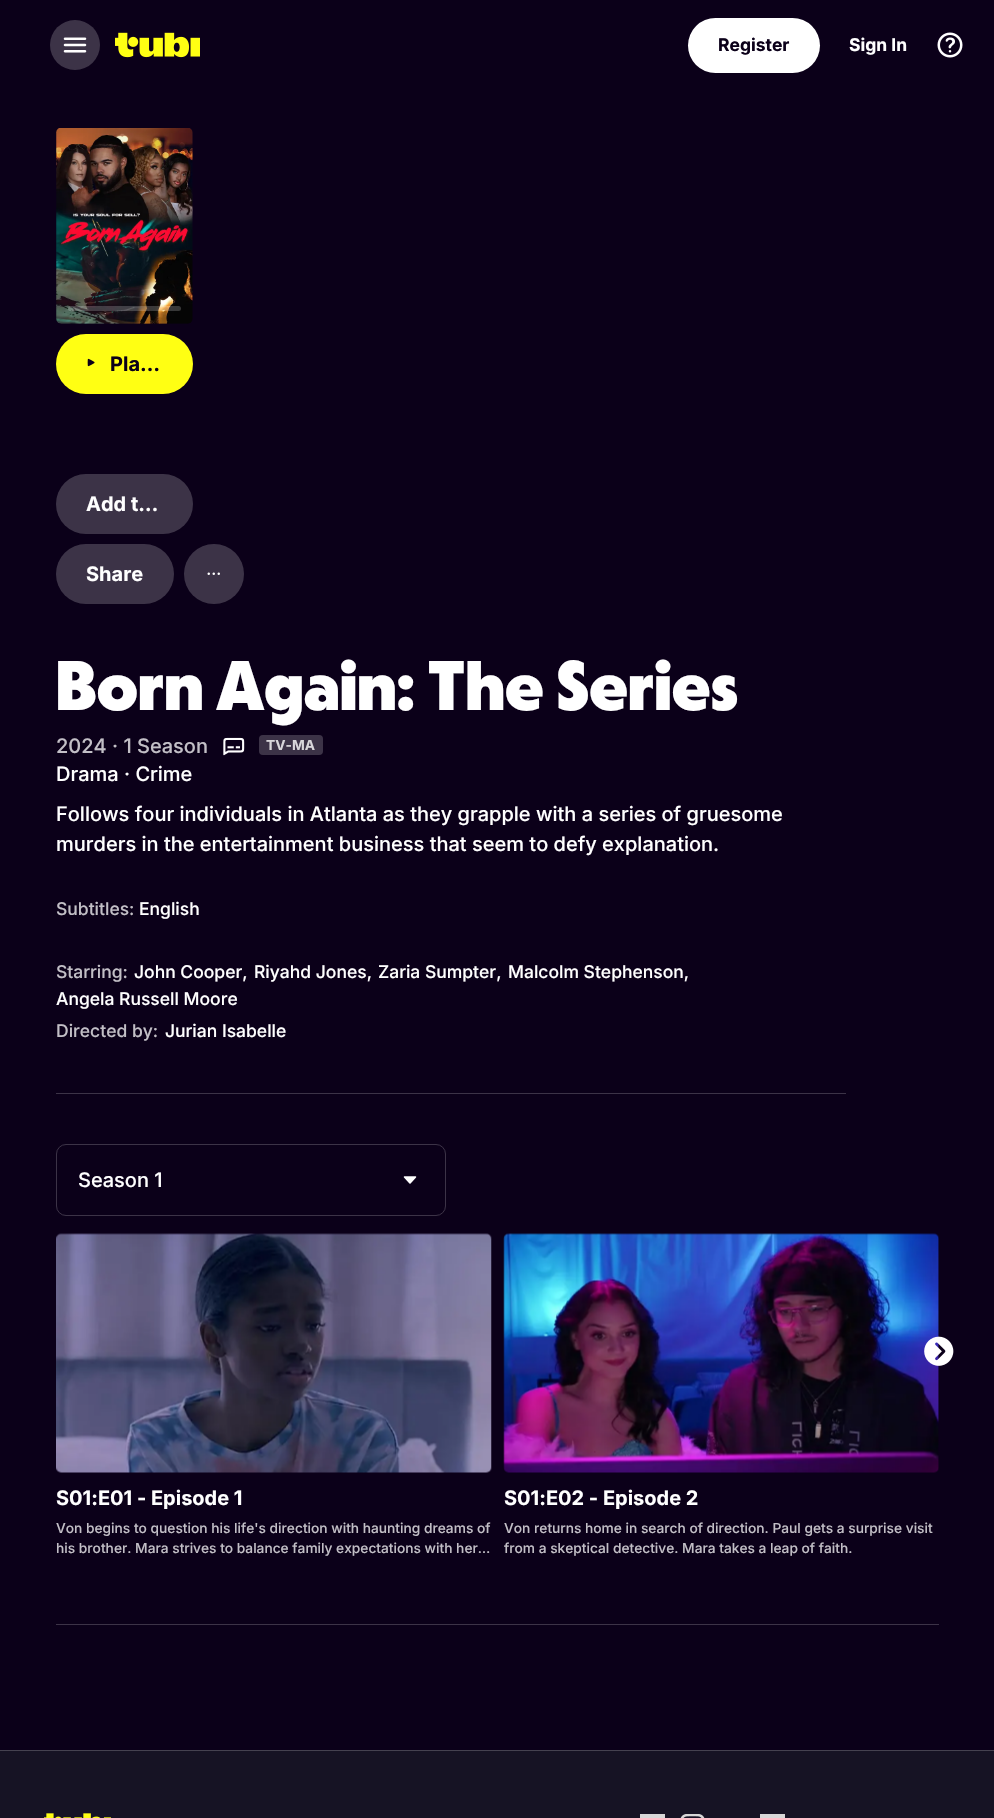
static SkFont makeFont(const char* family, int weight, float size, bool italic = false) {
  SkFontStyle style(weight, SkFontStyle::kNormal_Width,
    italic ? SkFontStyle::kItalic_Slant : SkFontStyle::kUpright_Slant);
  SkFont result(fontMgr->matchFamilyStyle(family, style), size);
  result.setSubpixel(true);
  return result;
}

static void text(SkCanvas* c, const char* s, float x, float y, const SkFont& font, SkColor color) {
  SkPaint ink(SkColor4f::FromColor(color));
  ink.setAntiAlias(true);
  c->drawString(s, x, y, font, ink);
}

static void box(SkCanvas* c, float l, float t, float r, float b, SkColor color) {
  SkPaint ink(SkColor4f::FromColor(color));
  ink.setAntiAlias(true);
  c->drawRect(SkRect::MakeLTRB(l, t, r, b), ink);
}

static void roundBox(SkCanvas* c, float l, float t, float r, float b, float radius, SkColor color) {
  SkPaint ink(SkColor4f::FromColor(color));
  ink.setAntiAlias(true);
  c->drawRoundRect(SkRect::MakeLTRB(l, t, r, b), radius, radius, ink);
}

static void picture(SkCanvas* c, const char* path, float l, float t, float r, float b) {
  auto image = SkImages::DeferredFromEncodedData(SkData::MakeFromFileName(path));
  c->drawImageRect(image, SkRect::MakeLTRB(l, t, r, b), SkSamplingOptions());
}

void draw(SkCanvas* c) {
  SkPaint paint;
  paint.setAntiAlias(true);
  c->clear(0xff0b0019);
  paint.setColor(0xff3c3347);
  c->drawCircle(75, 45, 25, paint);
  picture(c, "img_01.png", 63, 37, 87, 53);
  picture(c, "img_02.png", 115, 32, 200, 58);
  roundBox(c, 688, 18, 820, 73, 27.5f, 0xffffffff);
  SkFont face1 = makeFont("Inter", 700, 17.5f);
  text(c, "Register", 718, 51, face1, 0xff0b0019);
  text(c, "Sign In", 849, 51, face1, 0xffffffff);
  picture(c, "img_03.png", 937, 32, 963, 58);
  picture(c, "img_04.png", 56, 128, 193, 324);
  roundBox(c, 68, 306, 181, 311, 2.5f, 0x33ffffff);
  roundBox(c, 56, 334, 193, 394, 30, 0xffffff13);
  picture(c, "img_05.png", 87, 358, 95, 367);
  SkFont face2 = makeFont("Inter", 700, 20);
  text(c, "Pla…", 110, 371, face2, 0xff0b0019);
  roundBox(c, 56, 474, 193, 534, 30, 0xff3c3347);
  text(c, "Add t…", 86, 511, face2, 0xffffffff);
  roundBox(c, 56, 544, 174, 604, 30, 0xff3c3347);
  text(c, "Share", 86, 581, face2, 0xffffffff);
  c->drawCircle(214, 574, 30, paint);
  picture(c, "img_06.png", 207, 572, 220, 575);
  SkFont face3 = makeFont("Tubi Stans", 900, 70);
  text(c, "Born Again: The Series", 56, 710, face3, 0xffffffff);
  SkFont face4 = makeFont("Inter", 500, 20);
  text(c, "2024 · 1 Season", 56, 753, face4, 0xffc2bfc6);
  picture(c, "img_07.png", 223, 737, 245, 756);
  roundBox(c, 259, 735, 323, 755, 4, 0xff3c3347);
  SkFont face5 = makeFont("Inter", 700, 13.75f);
  text(c, "TV-MA", 266, 750, face5, 0xffd8d6da);
  text(c, "Drama", 56, 781, face4, 0xffffffff);
  text(c, "· Crime", 124, 781, face4, 0xffffffff);
  text(c, "Follows four individuals in Atlanta as they grapple with a series of gruesome", 56, 821, face4, 0xffffffff);
  text(c, "murders in the entertainment business that seem to defy explanation.", 56, 851, face4, 0xffffffff);
  SkFont face6 = makeFont("Inter", 500, 17.5f);
  text(c, "Subtitles:", 56, 915, face6, 0xffc2bfc6);
  text(c, "English", 139, 915, face6, 0xffffffff);
  text(c, "John Cooper,", 134, 978, face6, 0xffffffff);
  text(c, "Riyahd Jones,", 254, 978, face6, 0xffffffff);
  text(c, "Zaria Sumpter,", 378, 978, face6, 0xffffffff);
  text(c, "Malcolm Stephenson,", 508, 978, face6, 0xffffffff);
  text(c, "Angela Russell Moore", 56, 1005, face6, 0xffffffff);
  text(c, "Starring:", 56, 978, face6, 0xffc2bfc6);
  text(c, "Directed by:", 56, 1037, face6, 0xffc2bfc6);
  text(c, "Jurian Isabelle", 165, 1037, face6, 0xffffffff);
  box(c, 56, 1093, 846, 1094, 0xff3c3347);
  paint.setStyle(SkPaint::kStroke_Style);
  paint.setStrokeWidth(1);
  c->drawRoundRect(SkRect::MakeLTRB(56.5f, 1144.5f, 445.5f, 1215.5f), 9.5f, 9.5f, paint);
  text(c, "Season 1", 78, 1187, face4, 0xffffffff);
  picture(c, "img_08.png", 403, 1176, 417, 1184);
  picture(c, "img_11.png", 503, 1233, 939, 1473);
  picture(c, "img_09.png", 924, 1336, 954, 1366);
  picture(c, "img_10.png", 56, 1233, 492, 1473);
  text(c, "S01:E01 - Episode 1", 56, 1505, face2, 0xffffffff);
  SkFont face7 = makeFont("Inter", 500, 13.75f);
  text(c, "Von begins to question his life's direction with haunting dreams of", 56, 1533, face7, 0xffc2bfc6);
  text(c, "his brother. Mara strives to balance family expectations with her…", 56, 1553, face7, 0xffc2bfc6);
  text(c, "S01:E02 - Episode 2", 504, 1505, face2, 0xffffffff);
  text(c, "Von returns home in search of direction. Paul gets a surprise visit", 504, 1533, face7, 0xffc2bfc6);
  text(c, "from a skeptical detective. Mara takes a leap of faith.", 504, 1553, face7, 0xffc2bfc6);
  box(c, 56, 1624, 939, 1625, 0xff3c3347);
  box(c, 0, 1751, 994, 1818, 0xff161324);
  box(c, 0, 1750, 994, 1751, 0xff454250);
  picture(c, "img_12.png", 44, 1813, 111, 1818);
  box(c, 640, 1814, 665, 1818, 0xffd7d7d7);
  picture(c, "img_13.png", 680, 1814, 705, 1818);
  box(c, 760, 1814, 785, 1818, 0xffd7d7d7);
}
